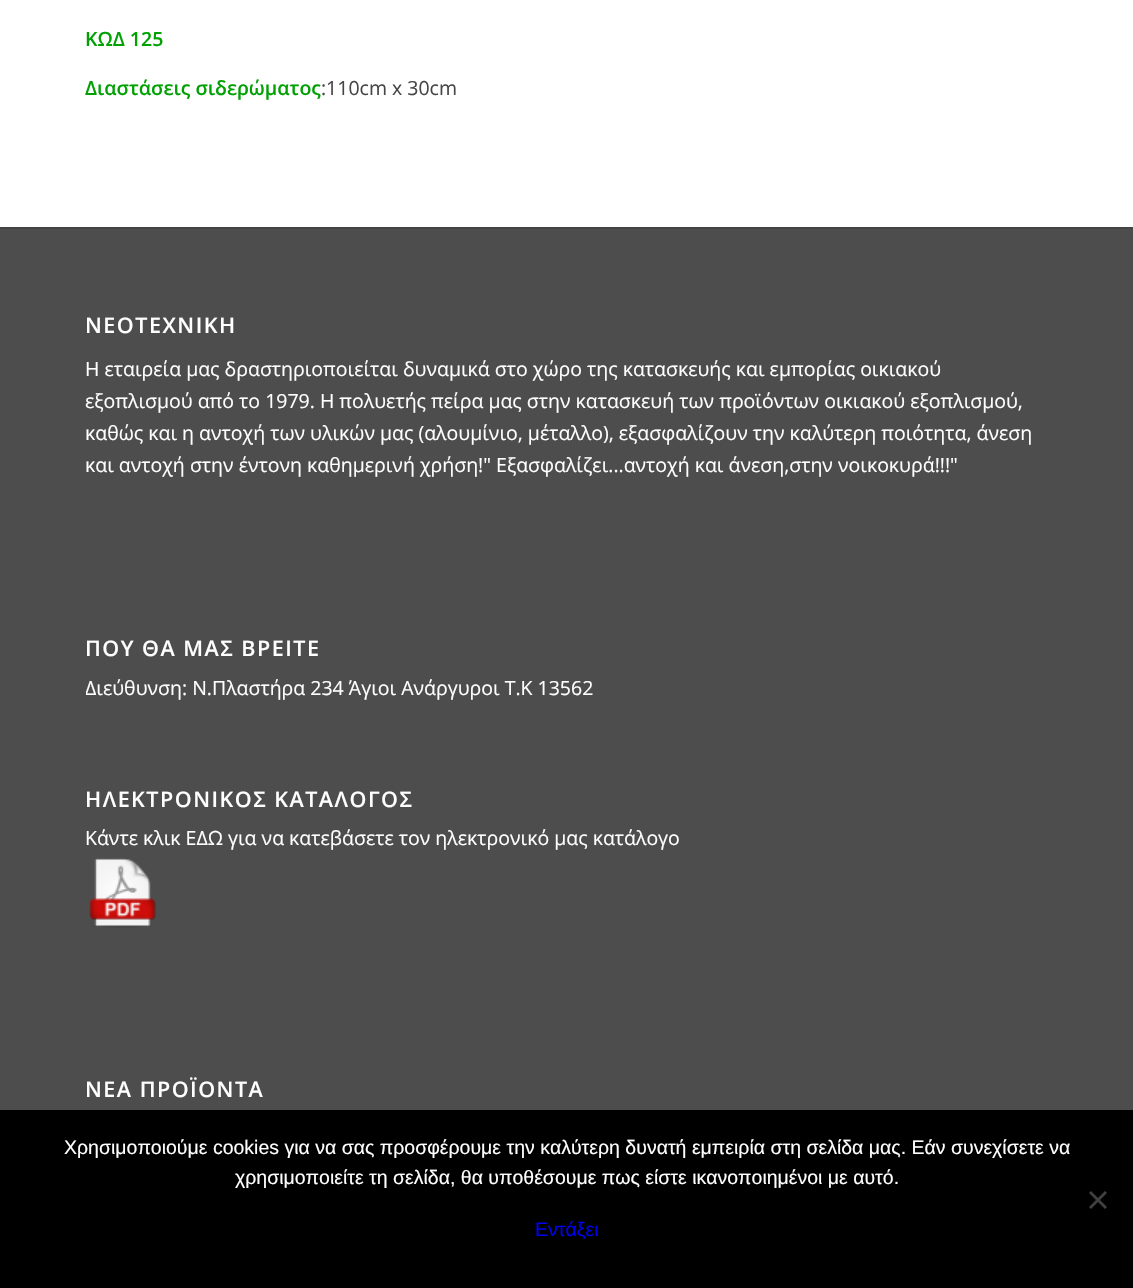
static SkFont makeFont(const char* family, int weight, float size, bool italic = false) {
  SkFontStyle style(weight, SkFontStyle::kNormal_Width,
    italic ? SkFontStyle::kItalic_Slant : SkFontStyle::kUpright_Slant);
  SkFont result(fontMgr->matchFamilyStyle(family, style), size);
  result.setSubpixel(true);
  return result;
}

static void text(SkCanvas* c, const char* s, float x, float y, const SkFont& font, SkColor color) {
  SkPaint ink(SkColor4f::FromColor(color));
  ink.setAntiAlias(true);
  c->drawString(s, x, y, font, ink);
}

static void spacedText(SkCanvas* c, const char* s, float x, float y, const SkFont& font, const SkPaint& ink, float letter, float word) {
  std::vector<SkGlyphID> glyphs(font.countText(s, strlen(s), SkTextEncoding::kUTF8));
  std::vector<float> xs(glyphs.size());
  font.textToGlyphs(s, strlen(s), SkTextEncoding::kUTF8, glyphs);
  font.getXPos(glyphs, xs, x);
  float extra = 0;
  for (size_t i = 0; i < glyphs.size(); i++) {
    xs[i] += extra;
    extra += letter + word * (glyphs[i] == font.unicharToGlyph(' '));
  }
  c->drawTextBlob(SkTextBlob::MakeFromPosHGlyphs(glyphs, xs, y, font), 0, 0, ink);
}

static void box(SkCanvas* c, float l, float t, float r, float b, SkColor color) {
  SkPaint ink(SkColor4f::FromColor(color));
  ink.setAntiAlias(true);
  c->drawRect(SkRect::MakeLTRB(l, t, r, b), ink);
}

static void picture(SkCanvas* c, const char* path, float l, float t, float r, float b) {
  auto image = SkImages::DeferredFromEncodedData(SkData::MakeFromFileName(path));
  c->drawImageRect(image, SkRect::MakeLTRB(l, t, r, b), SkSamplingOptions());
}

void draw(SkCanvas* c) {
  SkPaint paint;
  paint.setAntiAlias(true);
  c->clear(0xffffffff);
  SkFont face1 = makeFont("Open Sans", 600, 19.5f);
  text(c, "ΚΩΔ 125", 85, 46, face1, 0xff01a104);
  text(c, "Διαστάσεις σιδερώματος", 85, 95, face1, 0xff01a104);
  SkFont face2 = makeFont("Open Sans", 400, 19.5f);
  text(c, ":110cm x 30cm", 321, 95, face2, 0xff474547);
  box(c, 0, 229, 1133, 1110, 0xff4d4d4d);
  box(c, 0, 227, 1133, 229, 0xff444444);
  SkFont face3 = makeFont("Open Sans", 600, 21.5f);
  paint.setColor(0xffffffff);
  spacedText(c, "ΝΕΟΤΕΧΝΙΚΗ", 85, 333, face3, paint, 1.5f, 0);
  text(c, "Η εταιρεία μας δραστηριοποιείται δυναμικά στο χώρο της κατασκευής και εμπορίας οικιακού", 85, 376, face2, 0xffffffff);
  text(c, "εξοπλισμού από το 1979. Η πολυετής πείρα μας στην κατασκευή των προϊόντων οικιακού εξοπλισμού,", 85, 408, face2, 0xffffffff);
  text(c, "καθώς και η αντοχή των υλικών μας (αλουμίνιο, μέταλλο), εξασφαλίζουν την καλύτερη ποιότητα, άνεση", 85, 440, face2, 0xffffffff);
  text(c, "και αντοχή στην έντονη καθημερινή χρήση!\" Εξασφαλίζει...αντοχή και άνεση,στην νοικοκυρά!!!\"", 85, 472, face2, 0xffffffff);
  spacedText(c, "ΠΟΥ ΘΑ ΜΑΣ ΒΡΕΙΤΕ", 85, 656, face3, paint, 1.5f, 0);
  c->save();
  c->clipRect(SkRect::MakeLTRB(86, 618, 1049, 939));
  text(c, "Διεύθυνση: Ν.Πλαστήρα 234 Άγιοι Ανάργυροι Τ.Κ 13562", 85, 695, face2, 0xffffffff);
  c->restore();
  spacedText(c, "ΗΛΕΚΤΡΟΝΙΚΟΣ ΚΑΤΑΛΟΓΟΣ", 85, 807, face3, paint, 1.5f, 0);
  text(c, "Κάντε κλικ ΕΔΩ για να κατεβάσετε τον ηλεκτρονικό μας κατάλογο", 85, 845, face2, 0xffffffff);
  picture(c, "img_01.png", 89, 858, 156, 928);
  spacedText(c, "ΝΕΑ ΠΡΟΪΟΝΤΑ", 85, 1097, face3, paint, 1.5f, 0);
  box(c, 0, 1110, 1133, 1288, 0xff000000);
  SkFont face4 = makeFont("Liberation Sans", 400, 19.5f);
  text(c, "Χρησιμοποιούμε cookies για να σας προσφέρουμε την καλύτερη δυνατή εμπειρία στη σελίδα μας. Εάν συνεχίσετε να", 64, 1154, face4, 0xffffffff);
  text(c, "χρησιμοποιείτε τη σελίδα, θα υποθέσουμε πως είστε ικανοποιημένοι με αυτό.", 235, 1184, face4, 0xffffffff);
  paint.setColor(0xff404040);
  c->drawPath(SkPathBuilder().moveTo(1105, 1191).lineTo(1107, 1193).lineTo(1091, 1209).lineTo(1089, 1207).close().detach(), paint);
  c->drawPath(SkPathBuilder().moveTo(1089, 1193).lineTo(1091, 1191).lineTo(1107, 1207).lineTo(1105, 1209).close().detach(), paint);
  text(c, "Εντάξει", 535, 1236, face4, 0xff0000ee);
}
